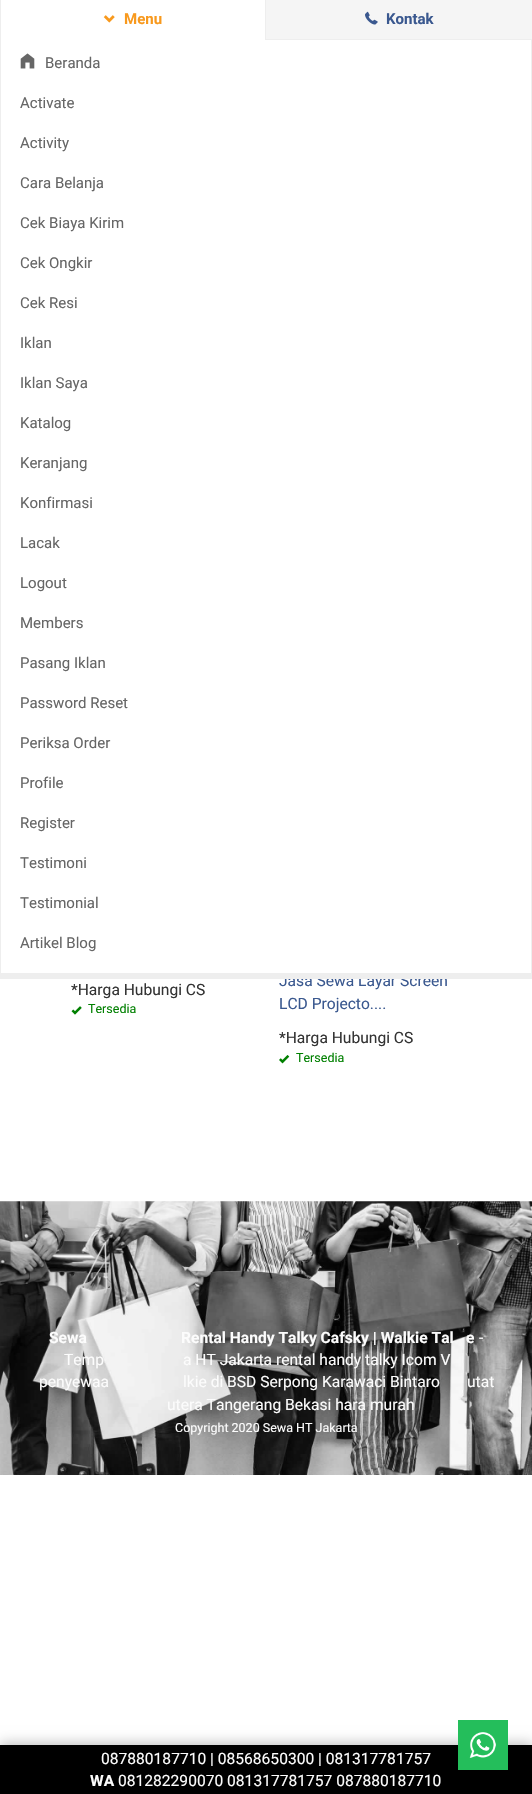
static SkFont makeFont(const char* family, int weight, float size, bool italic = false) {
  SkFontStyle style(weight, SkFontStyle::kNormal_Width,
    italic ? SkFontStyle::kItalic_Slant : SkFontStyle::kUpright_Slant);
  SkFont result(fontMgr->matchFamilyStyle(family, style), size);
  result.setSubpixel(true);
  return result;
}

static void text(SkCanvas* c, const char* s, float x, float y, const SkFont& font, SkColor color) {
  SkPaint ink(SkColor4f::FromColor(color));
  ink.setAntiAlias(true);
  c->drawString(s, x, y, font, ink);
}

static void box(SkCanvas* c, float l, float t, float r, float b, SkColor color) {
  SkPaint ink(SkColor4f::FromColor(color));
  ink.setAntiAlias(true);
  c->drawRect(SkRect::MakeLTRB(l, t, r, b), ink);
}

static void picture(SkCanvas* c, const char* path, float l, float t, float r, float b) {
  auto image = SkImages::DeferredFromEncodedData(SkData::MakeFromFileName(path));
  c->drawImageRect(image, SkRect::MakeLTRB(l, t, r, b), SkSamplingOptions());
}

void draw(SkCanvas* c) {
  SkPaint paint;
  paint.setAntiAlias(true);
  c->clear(0xffffffff);
  box(c, 266, 0, 532, 39, 0xfff5f5f5);
  box(c, 266, 39, 532, 40, 0xffeeeeee);
  box(c, 265, 0, 266, 40, 0xffeeeeee);
  box(c, 0, 0, 1, 40, 0xffeeeeee);
  picture(c, "img_01.png", 103, 15, 115, 23);
  SkFont face1 = makeFont("Roboto", 700, 15);
  text(c, "Menu", 124, 24, face1, 0xfff8991d);
  box(c, 531, 40, 532, 979, 0xffeeeeee);
  SkFont face2 = makeFont("Roboto", 400, 15.6f);
  text(c, "Jasa Sewa Layar Screen", 279, 986, face2, 0xff3a588f);
  box(c, 0, 973, 532, 979, 0xffeeeeee);
  box(c, 0, 40, 1, 979, 0xffeeeeee);
  picture(c, "img_02.png", 20, 53, 35, 69);
  SkFont face3 = makeFont("Roboto", 400, 15);
  text(c, "Beranda", 45, 68, face3, 0xff666666);
  text(c, "Activate", 20, 108, face3, 0xff666666);
  text(c, "Activity", 20, 148, face3, 0xff666666);
  text(c, "Cara Belanja", 20, 188, face3, 0xff666666);
  text(c, "Cek Biaya Kirim", 20, 228, face3, 0xff666666);
  text(c, "Cek Ongkir", 20, 268, face3, 0xff666666);
  text(c, "Cek Resi", 20, 308, face3, 0xff666666);
  text(c, "Iklan", 20, 348, face3, 0xff666666);
  text(c, "Iklan Saya", 20, 388, face3, 0xff666666);
  text(c, "Katalog", 20, 428, face3, 0xff666666);
  text(c, "Keranjang", 20, 468, face3, 0xff666666);
  text(c, "Konfirmasi", 20, 508, face3, 0xff666666);
  text(c, "Lacak", 20, 548, face3, 0xff666666);
  text(c, "Logout", 20, 588, face3, 0xff666666);
  text(c, "Members", 20, 628, face3, 0xff666666);
  text(c, "Pasang Iklan", 20, 668, face3, 0xff666666);
  text(c, "Password Reset", 20, 708, face3, 0xff666666);
  text(c, "Periksa Order", 20, 748, face3, 0xff666666);
  text(c, "Profile", 20, 788, face3, 0xff666666);
  text(c, "Register", 20, 828, face3, 0xff666666);
  text(c, "Testimoni", 20, 868, face3, 0xff666666);
  text(c, "Testimonial", 20, 908, face3, 0xff666666);
  text(c, "Artikel Blog", 20, 948, face3, 0xff666666);
  picture(c, "img_03.png", 365, 11, 378, 25);
  text(c, "Kontak", 386, 24, face1, 0xff3a588f);
  text(c, "*Harga Hubungi CS", 71, 995, face2, 0xff333333);
  picture(c, "img_04.png", 71, 1006, 82, 1015);
  SkFont face4 = makeFont("Roboto", 400, 12.5f);
  text(c, "Tersedia", 88, 1013, face4, 0xff008000);
  text(c, "LCD Projecto....", 279, 1009, face2, 0xff3a588f);
  text(c, "*Harga Hubungi CS", 279, 1043, face2, 0xff333333);
  picture(c, "img_05.png", 279, 1055, 290, 1064);
  text(c, "Tersedia", 296, 1062, face4, 0xff008000);
  picture(c, "img_06.png", 0, 1201, 532, 1475);
  SkFont face5 = makeFont("Roboto", 700, 15.6f);
  text(c, "Sewa", 49, 1343, face5, 0xfffcfcfc);
  text(c, "Rental Handy Talky Cafsky | Walkie Tal", 181, 1343, face5, 0xfffcfcfc);
  text(c, "e", 466, 1343, face5, 0xfffcfcfc);
  text(c, "-", 479, 1343, face2, 0xfffcfcfc);
  text(c, "Temp", 64, 1365, face2, 0xfffcfcfc);
  text(c, "a HT Jakarta rental handy talky Icom V", 183, 1365, face2, 0xfffcfcfc);
  text(c, "penyewaa", 39, 1387, face2, 0xfffcfcfc);
  text(c, "lkie di BSD Serpong Karawaci Bintaro", 183, 1387, face2, 0xfffcfcfc);
  text(c, "utat", 467, 1387, face2, 0xfffcfcfc);
  text(c, "utera Tangerang Bekasi hara murah", 167, 1410, face2, 0xfffcfcfc);
  text(c, "Copyright 2020 Sewa HT Jakarta", 175, 1432, face4, 0xfffcfcfc);
  paint.setColor(0xffc0c0c0);
  paint.setMaskFilter(SkMaskFilter::MakeBlur(kNormal_SkBlurStyle, 6));
  c->drawRect(SkRect::MakeLTRB(0, 1743, 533, 1793), paint);
  paint.setMaskFilter(nullptr);
  box(c, 0, 1745, 532, 1794, 0xff000000);
  text(c, "087880187710 | 08568650300 | 081317781757", 101, 1764, face2, 0xfffcfcfc);
  text(c, "WA", 90, 1786, face5, 0xfffcfcfc);
  text(c, "081282290070 081317781757 087880187710", 118, 1786, face2, 0xfffcfcfc);
  box(c, 458, 1720, 508, 1770, 0xff24be5b);
  picture(c, "img_07.png", 469, 1732, 496, 1758);
}
